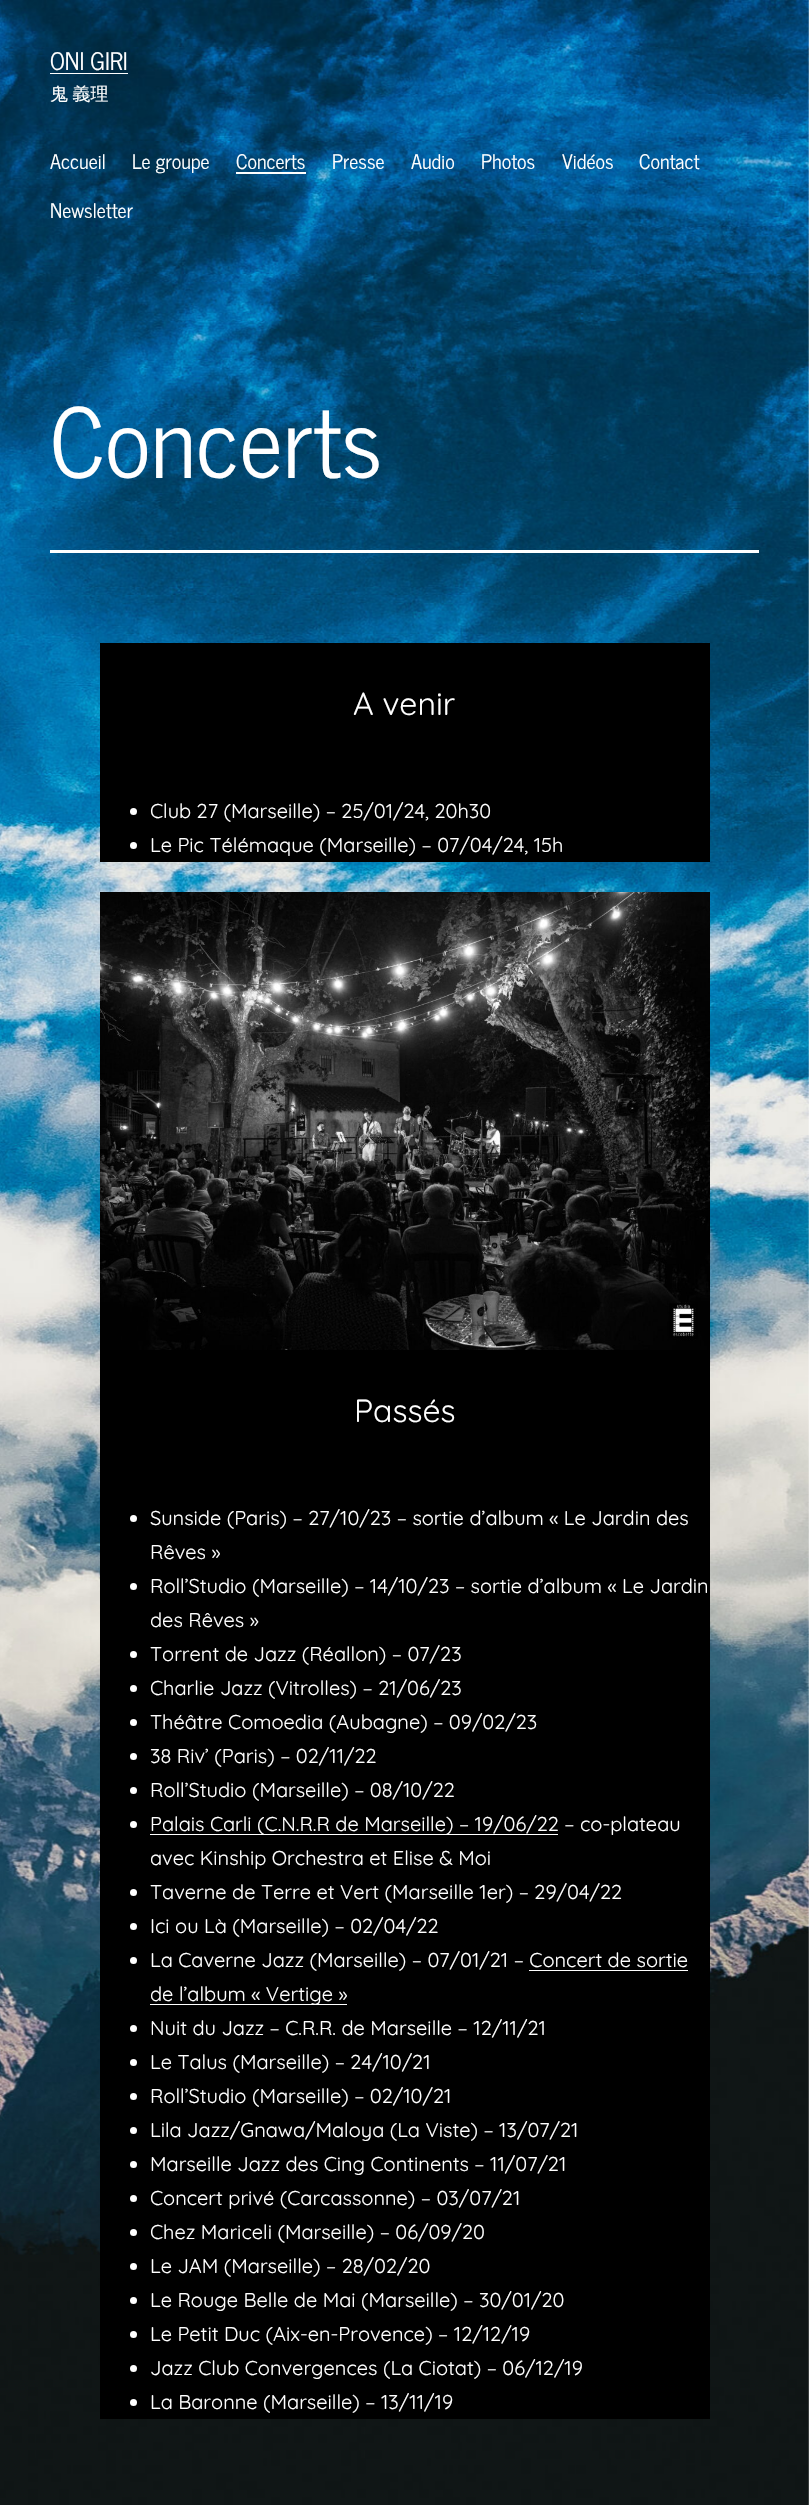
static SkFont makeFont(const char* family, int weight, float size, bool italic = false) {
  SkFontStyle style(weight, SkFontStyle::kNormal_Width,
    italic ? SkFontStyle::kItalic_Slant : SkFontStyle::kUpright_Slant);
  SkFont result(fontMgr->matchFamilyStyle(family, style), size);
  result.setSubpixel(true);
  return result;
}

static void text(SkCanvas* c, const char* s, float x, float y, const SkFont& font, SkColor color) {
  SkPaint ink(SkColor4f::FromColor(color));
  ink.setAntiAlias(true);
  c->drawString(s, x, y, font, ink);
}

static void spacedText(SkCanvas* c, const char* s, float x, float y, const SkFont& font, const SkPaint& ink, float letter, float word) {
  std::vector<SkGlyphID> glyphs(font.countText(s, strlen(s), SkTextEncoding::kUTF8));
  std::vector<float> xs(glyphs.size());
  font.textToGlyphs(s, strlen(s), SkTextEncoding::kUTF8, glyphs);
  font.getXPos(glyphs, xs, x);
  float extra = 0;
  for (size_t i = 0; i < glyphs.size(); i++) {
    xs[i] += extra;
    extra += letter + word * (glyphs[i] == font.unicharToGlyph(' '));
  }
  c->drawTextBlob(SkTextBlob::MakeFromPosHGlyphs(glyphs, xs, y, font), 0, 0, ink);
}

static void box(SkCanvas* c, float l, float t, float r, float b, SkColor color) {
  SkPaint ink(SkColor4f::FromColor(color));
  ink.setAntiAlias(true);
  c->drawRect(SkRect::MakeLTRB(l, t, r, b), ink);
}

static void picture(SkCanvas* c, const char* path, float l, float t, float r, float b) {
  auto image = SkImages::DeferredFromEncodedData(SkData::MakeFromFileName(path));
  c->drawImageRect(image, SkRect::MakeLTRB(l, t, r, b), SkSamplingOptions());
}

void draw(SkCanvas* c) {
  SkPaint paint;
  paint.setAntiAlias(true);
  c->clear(0xffffffff);
  picture(c, "img_01.png", 0, 0, 809, 2505);
  SkFont face1 = makeFont("News Cycle", 400, 24);
  text(c, "ONI GIRI", 50, 70, face1, 0xffffffff);
  box(c, 50, 73, 128, 74, 0xffffffff);
  SkFont face2 = makeFont("WenQuanYi Zen Hei", 500, 18);
  paint.setColor(0xffffffff);
  spacedText(c, "鬼 義理", 50, 100, face2, paint, 0, -1);
  SkFont face3 = makeFont("News Cycle", 400, 20);
  text(c, "Accueil", 50, 169, face3, 0xffffffff);
  text(c, "Le groupe", 132, 169, face3, 0xffffffff);
  text(c, "Concerts", 236, 169, face3, 0xffffffff);
  box(c, 236, 172, 306, 174, 0xffffffff);
  text(c, "Presse", 332, 169, face3, 0xffffffff);
  text(c, "Audio", 411, 169, face3, 0xffffffff);
  text(c, "Photos", 481, 169, face3, 0xffffffff);
  text(c, "Vidéos", 562, 169, face3, 0xffffffff);
  text(c, "Contact", 639, 169, face3, 0xffffffff);
  text(c, "Newsletter", 50, 218, face3, 0xffffffff);
  box(c, 50, 550, 759, 553, 0xffffffff);
  SkFont face4 = makeFont("News Cycle", 400, 96);
  text(c, "Concerts", 50, 478, face4, 0xffffffff);
  box(c, 100, 643, 710, 862, 0xff000000);
  SkFont face5 = makeFont("Quicksand", 400, 32);
  text(c, "A venir", 353, 715, face5, 0xffffffff);
  c->drawCircle(133.5f, 811.5f, 3.5f, paint);
  SkFont face6 = makeFont("Quicksand", 400, 20);
  text(c, "Club 27 (Marseille) – 25/01/24, 20h30", 150, 818, face6, 0xffffffff);
  c->drawCircle(133.5f, 845.5f, 3.5f, paint);
  text(c, "Le Pic Télémaque (Marseille) – 07/04/24, 15h", 150, 852, face6, 0xffffffff);
  picture(c, "img_02.png", 100, 892, 710, 1350);
  box(c, 100, 1350, 710, 2419, 0xff000000);
  text(c, "Passés", 354, 1422, face5, 0xffffffff);
  c->drawCircle(133.5f, 1518.5f, 3.5f, paint);
  text(c, "Sunside (Paris) – 27/10/23 – sortie d’album « Le Jardin des", 150, 1525, face6, 0xffffffff);
  text(c, "Rêves »", 150, 1559, face6, 0xffffffff);
  c->drawCircle(133.5f, 1586.5f, 3.5f, paint);
  text(c, "Roll’Studio (Marseille) – 14/10/23 – sortie d’album « Le Jardin", 150, 1593, face6, 0xffffffff);
  text(c, "des Rêves »", 150, 1627, face6, 0xffffffff);
  c->drawCircle(133.5f, 1654.5f, 3.5f, paint);
  text(c, "Torrent de Jazz (Réallon) – 07/23", 150, 1661, face6, 0xffffffff);
  c->drawCircle(133.5f, 1688.5f, 3.5f, paint);
  text(c, "Charlie Jazz (Vitrolles) – 21/06/23", 150, 1695, face6, 0xffffffff);
  c->drawCircle(133.5f, 1722.5f, 3.5f, paint);
  text(c, "Théâtre Comoedia (Aubagne) – 09/02/23", 150, 1729, face6, 0xffffffff);
  c->drawCircle(133.5f, 1756.5f, 3.5f, paint);
  text(c, "38 Riv’ (Paris) – 02/11/22", 150, 1763, face6, 0xffffffff);
  c->drawCircle(133.5f, 1790.5f, 3.5f, paint);
  text(c, "Roll’Studio (Marseille) – 08/10/22", 150, 1797, face6, 0xffffffff);
  c->drawCircle(133.5f, 1824.5f, 3.5f, paint);
  box(c, 150, 1834, 558, 1835, 0xffffffff);
  text(c, "Palais Carli (C.N.R.R de Marseille) – 19/06/22 – co-plateau", 150, 1831, face6, 0xffffffff);
  text(c, "avec Kinship Orchestra et Elise & Moi", 150, 1865, face6, 0xffffffff);
  c->drawCircle(133.5f, 1892.5f, 3.5f, paint);
  text(c, "Taverne de Terre et Vert (Marseille 1er) – 29/04/22", 150, 1899, face6, 0xffffffff);
  c->drawCircle(133.5f, 1926.5f, 3.5f, paint);
  text(c, "Ici ou Là (Marseille) – 02/04/22", 150, 1933, face6, 0xffffffff);
  c->drawCircle(133.5f, 1960.5f, 3.5f, paint);
  text(c, "La Caverne Jazz (Marseille) – 07/01/21 – Concert de sortie", 150, 1967, face6, 0xffffffff);
  box(c, 150, 2004, 347, 2005, 0xffffffff);
  text(c, "de l’album « Vertige »", 150, 2001, face6, 0xffffffff);
  box(c, 529, 1970, 688, 1971, 0xffffffff);
  c->drawCircle(133.5f, 2028.5f, 3.5f, paint);
  text(c, "Nuit du Jazz – C.R.R. de Marseille – 12/11/21", 150, 2035, face6, 0xffffffff);
  c->drawCircle(133.5f, 2062.5f, 3.5f, paint);
  text(c, "Le Talus (Marseille) – 24/10/21", 150, 2069, face6, 0xffffffff);
  c->drawCircle(133.5f, 2096.5f, 3.5f, paint);
  text(c, "Roll’Studio (Marseille) – 02/10/21", 150, 2103, face6, 0xffffffff);
  c->drawCircle(133.5f, 2130.5f, 3.5f, paint);
  text(c, "Lila Jazz/Gnawa/Maloya (La Viste) – 13/07/21", 150, 2137, face6, 0xffffffff);
  c->drawCircle(133.5f, 2164.5f, 3.5f, paint);
  text(c, "Marseille Jazz des Cing Continents – 11/07/21", 150, 2171, face6, 0xffffffff);
  c->drawCircle(133.5f, 2198.5f, 3.5f, paint);
  text(c, "Concert privé (Carcassonne) – 03/07/21", 150, 2205, face6, 0xffffffff);
  c->drawCircle(133.5f, 2232.5f, 3.5f, paint);
  text(c, "Chez Mariceli (Marseille) – 06/09/20", 150, 2239, face6, 0xffffffff);
  c->drawCircle(133.5f, 2266.5f, 3.5f, paint);
  text(c, "Le JAM (Marseille) – 28/02/20", 150, 2273, face6, 0xffffffff);
  c->drawCircle(133.5f, 2300.5f, 3.5f, paint);
  text(c, "Le Rouge Belle de Mai (Marseille) – 30/01/20", 150, 2307, face6, 0xffffffff);
  c->drawCircle(133.5f, 2334.5f, 3.5f, paint);
  text(c, "Le Petit Duc (Aix-en-Provence) – 12/12/19", 150, 2341, face6, 0xffffffff);
  c->drawCircle(133.5f, 2368.5f, 3.5f, paint);
  text(c, "Jazz Club Convergences (La Ciotat) – 06/12/19", 150, 2375, face6, 0xffffffff);
  c->drawCircle(133.5f, 2402.5f, 3.5f, paint);
  text(c, "La Baronne (Marseille) – 13/11/19", 150, 2409, face6, 0xffffffff);
}
